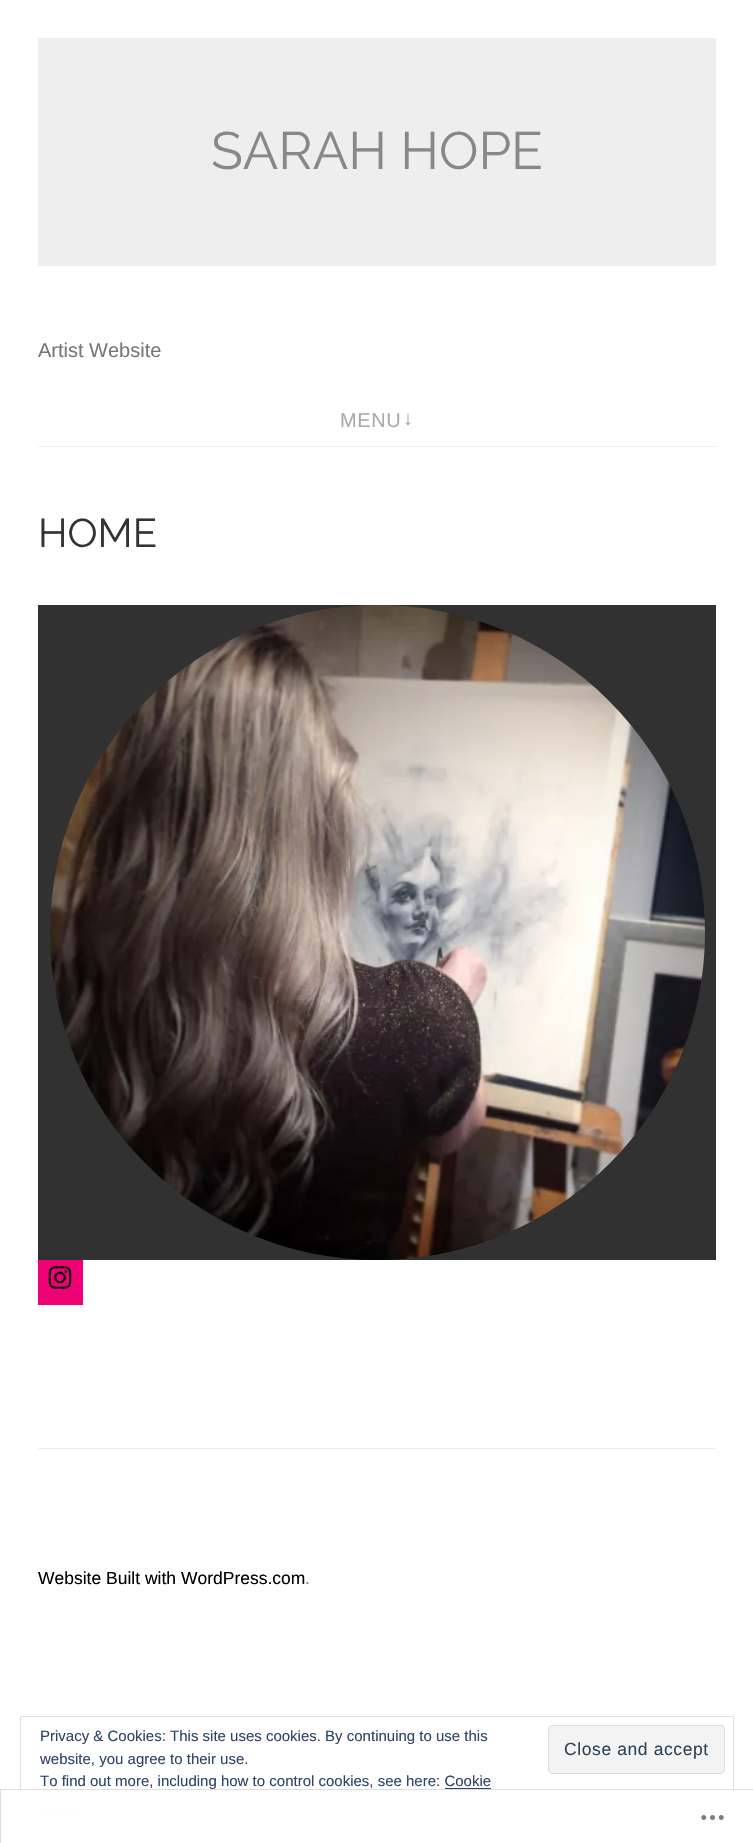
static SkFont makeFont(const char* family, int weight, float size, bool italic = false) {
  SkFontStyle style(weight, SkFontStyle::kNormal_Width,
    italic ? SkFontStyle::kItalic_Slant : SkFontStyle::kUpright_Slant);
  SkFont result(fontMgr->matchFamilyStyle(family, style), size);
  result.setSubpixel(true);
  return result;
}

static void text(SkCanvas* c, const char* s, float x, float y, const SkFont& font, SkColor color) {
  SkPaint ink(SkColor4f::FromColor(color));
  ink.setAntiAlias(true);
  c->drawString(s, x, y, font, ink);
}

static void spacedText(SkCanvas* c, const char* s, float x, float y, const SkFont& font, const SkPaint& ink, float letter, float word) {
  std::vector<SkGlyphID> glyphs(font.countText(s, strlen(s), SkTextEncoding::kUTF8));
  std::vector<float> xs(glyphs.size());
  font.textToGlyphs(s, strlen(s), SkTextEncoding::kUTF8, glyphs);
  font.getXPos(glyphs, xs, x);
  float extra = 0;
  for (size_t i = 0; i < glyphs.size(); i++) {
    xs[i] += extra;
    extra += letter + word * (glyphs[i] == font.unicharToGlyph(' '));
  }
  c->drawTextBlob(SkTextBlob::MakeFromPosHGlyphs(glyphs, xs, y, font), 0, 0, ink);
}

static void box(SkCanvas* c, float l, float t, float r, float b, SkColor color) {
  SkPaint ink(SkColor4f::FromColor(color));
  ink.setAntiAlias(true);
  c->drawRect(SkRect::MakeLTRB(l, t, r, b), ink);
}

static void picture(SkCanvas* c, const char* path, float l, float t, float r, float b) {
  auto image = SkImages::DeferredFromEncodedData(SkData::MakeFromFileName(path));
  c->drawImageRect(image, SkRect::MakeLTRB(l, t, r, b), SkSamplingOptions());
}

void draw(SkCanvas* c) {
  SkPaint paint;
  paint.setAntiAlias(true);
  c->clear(0xffffffff);
  box(c, 38, 38, 716, 266, 0xffeeeeee);
  SkFont face1 = makeFont("Raleway", 100, 52.5f);
  text(c, "SARAH HOPE", 211, 169, face1, 0xff888888);
  SkFont face2 = makeFont("Arimo", 400, 20);
  text(c, "Artist Website", 38, 357, face2, 0xff777777);
  box(c, 38, 446, 716, 447, 0xfff0f0f0);
  paint.setColor(0xffaaaaaa);
  spacedText(c, "MENU", 340, 427, face2, paint, 0.6f, 0);
  spacedText(c, "↓", 403, 425, face2, paint, 0.6f, 0);
  SkFont face3 = makeFont("Raleway", 100, 40);
  text(c, "HOME", 38, 547, face3, 0xff333333);
  box(c, 38, 605, 716, 1260, 0xff313131);
  picture(c, "img_01.png", 50, 605, 705, 1260);
  box(c, 38, 1260, 83, 1305, 0xfff00075);
  picture(c, "img_02.png", 48, 1266, 72, 1289);
  box(c, 38, 1448, 716, 1449, 0xffeeeeee);
  SkFont face4 = makeFont("Arimo", 400, 17.5f);
  text(c, "Website Built with WordPress.com", 38, 1584, face4, 0xff000000);
  text(c, ".", 305, 1584, face4, 0xff777777);
  paint.setStyle(SkPaint::kStroke_Style);
  paint.setStrokeWidth(1);
  paint.setColor(0xffdedede);
  c->drawRect(SkRect::MakeLTRB(20.5f, 1716.5f, 733.5f, 1823.5f), paint);
  SkFont face5 = makeFont("Arimo", 400, 15);
  text(c, "Privacy & Cookies: This site uses cookies. By continuing to use this", 40, 1741, face5, 0xff2e4467);
  paint.setStyle(SkPaint::kFill_Style);
  paint.setColor(0xfff3f3f3);
  c->drawRoundRect(SkRect::MakeLTRB(548.5f, 1725.5f, 724.5f, 1773.5f), 3.5f, 3.5f, paint);
  paint.setStyle(SkPaint::kStroke_Style);
  paint.setColor(0xffdedede);
  c->drawRoundRect(SkRect::MakeLTRB(548.5f, 1725.5f, 724.5f, 1773.5f), 3.5f, 3.5f, paint);
  paint.setStyle(SkPaint::kFill_Style);
  paint.setColor(0xff2e4453);
  spacedText(c, "Close and accept", 564, 1755, face4, paint, 0.6f, 0);
  text(c, "website, you agree to their use.", 40, 1764, face5, 0xff2e4467);
  text(c, "To find out more, including how to control cookies, see here: Cookie", 40, 1786, face5, 0xff2e4467);
  box(c, 445, 1788, 491, 1789, 0xff2e4467);
  box(c, 40, 1810, 80, 1811, 0xff2e4467);
  box(c, 20, 1790, 734, 1824, 0xfaffffff);
  paint.setStyle(SkPaint::kStroke_Style);
  paint.setColor(0xffdddddf);
  c->drawRect(SkRect::MakeLTRB(0.5f, 1789.5f, 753.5f, 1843.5f), paint);
  picture(c, "img_03.png", 701, 1815, 724, 1820);
}
